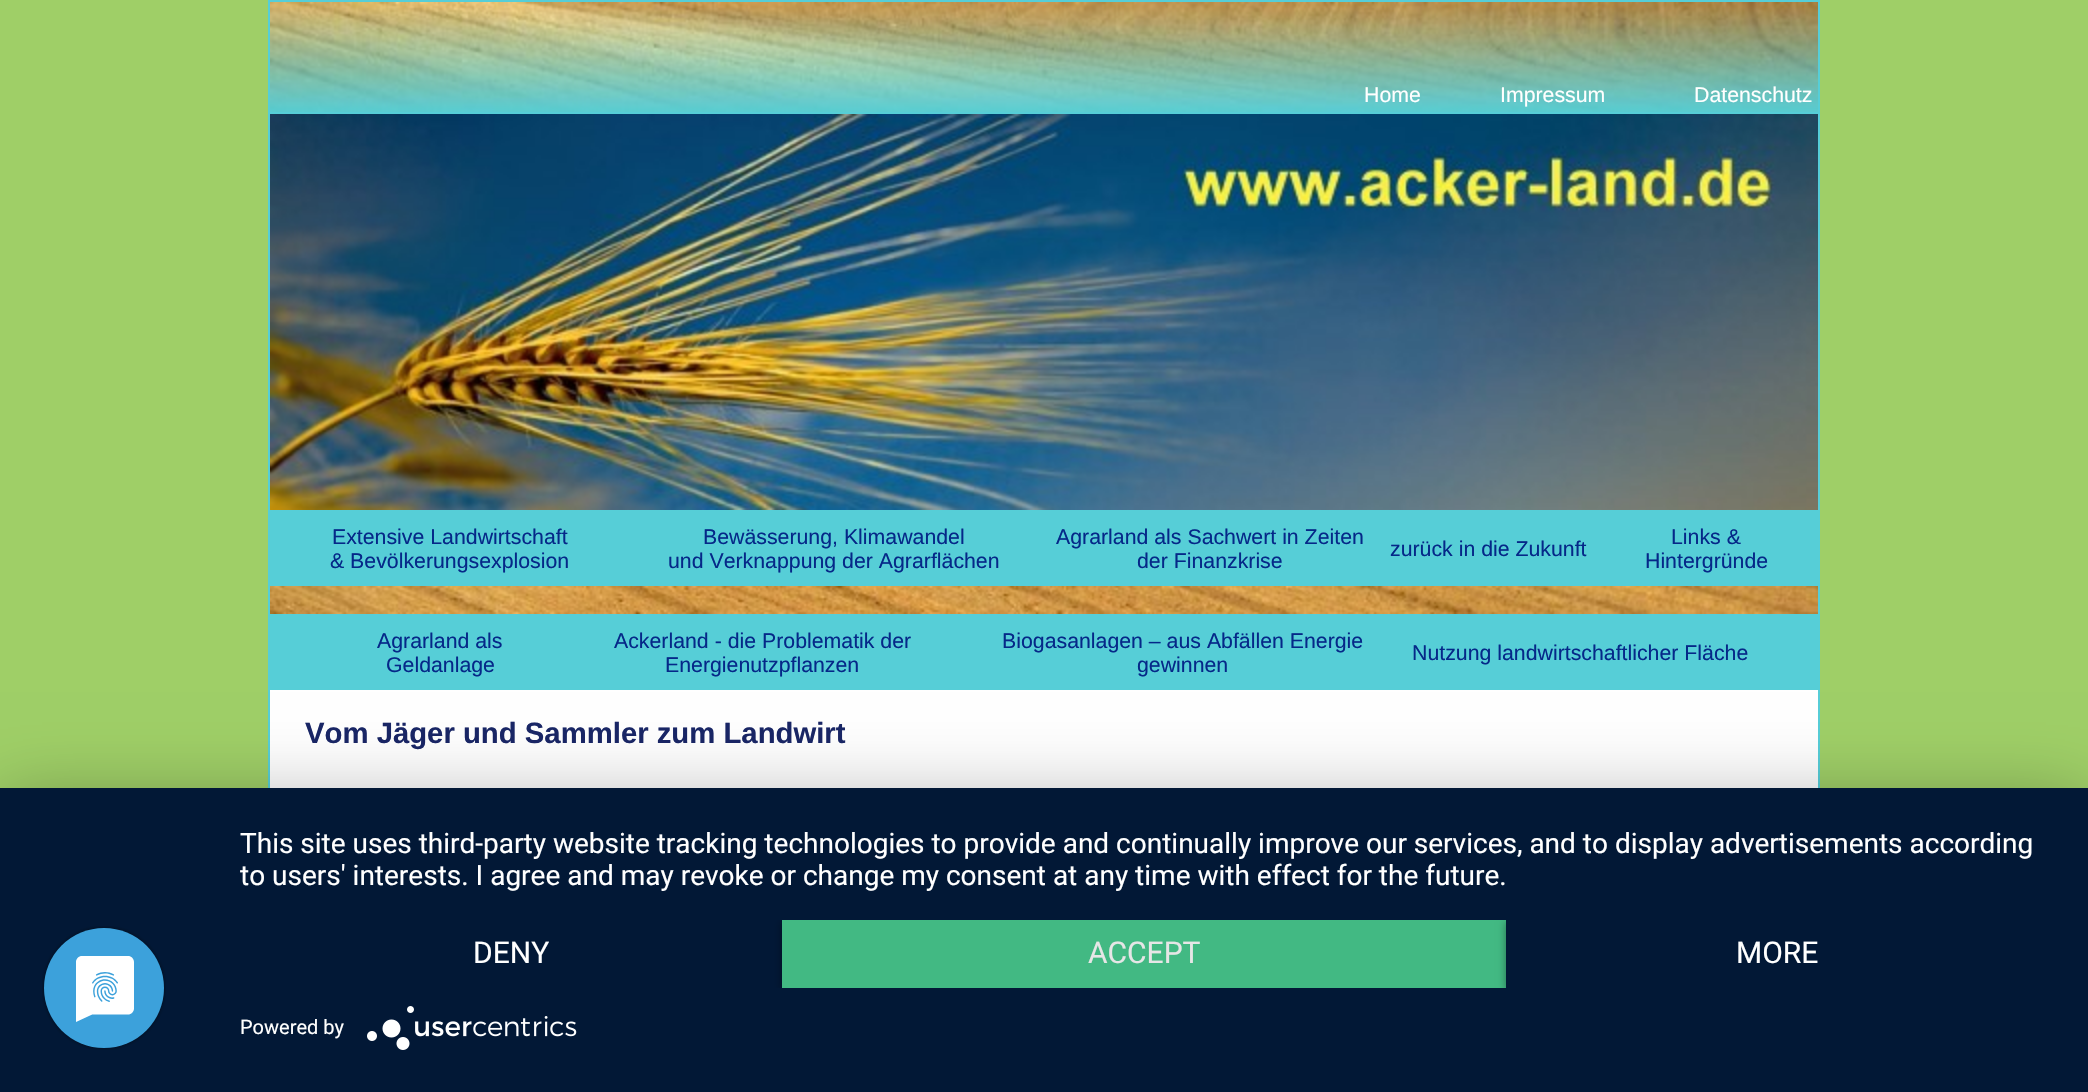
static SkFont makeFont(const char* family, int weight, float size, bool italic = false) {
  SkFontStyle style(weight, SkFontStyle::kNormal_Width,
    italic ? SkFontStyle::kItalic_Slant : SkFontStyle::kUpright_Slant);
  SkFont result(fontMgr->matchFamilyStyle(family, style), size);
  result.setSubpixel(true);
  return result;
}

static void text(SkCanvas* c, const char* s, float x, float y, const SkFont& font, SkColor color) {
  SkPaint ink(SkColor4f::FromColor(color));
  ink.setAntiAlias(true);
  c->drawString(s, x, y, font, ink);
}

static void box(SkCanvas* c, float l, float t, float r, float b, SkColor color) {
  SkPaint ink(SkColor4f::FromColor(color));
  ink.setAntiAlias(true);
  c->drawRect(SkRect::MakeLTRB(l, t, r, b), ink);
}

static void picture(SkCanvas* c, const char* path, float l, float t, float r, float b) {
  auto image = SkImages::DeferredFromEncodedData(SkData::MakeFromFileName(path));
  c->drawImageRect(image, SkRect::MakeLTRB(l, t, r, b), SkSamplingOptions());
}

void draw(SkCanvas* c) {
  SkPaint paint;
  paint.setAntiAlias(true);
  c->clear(0xff9fcf67);
  box(c, 268, 0, 1820, 788, 0xff56ced7);
  picture(c, "img_01.png", 270, 2, 1818, 112);
  SkFont face1 = makeFont("Liberation Sans", 400, 21.3f);
  text(c, "Home", 1364, 102, face1, 0xffffffff);
  text(c, "Impressum", 1500, 102, face1, 0xffffffff);
  text(c, "Datenschutz", 1694, 102, face1, 0xffffffff);
  picture(c, "img_02.png", 270, 114, 1818, 510);
  text(c, "Extensive Landwirtschaft", 332, 544, face1, 0xff052888);
  text(c, "& Bevölkerungsexplosion", 330, 568, face1, 0xff052888);
  text(c, "Bewässerung, Klimawandel", 703, 544, face1, 0xff052888);
  text(c, "und Verknappung der Agrarflächen", 668, 568, face1, 0xff052888);
  text(c, "Agrarland als Sachwert in Zeiten", 1056, 544, face1, 0xff052888);
  text(c, "der Finanzkrise", 1137, 568, face1, 0xff052888);
  text(c, "zurück in die Zukunft", 1390, 556, face1, 0xff052888);
  text(c, "Links &", 1671, 544, face1, 0xff052888);
  text(c, "Hintergründe", 1645, 568, face1, 0xff052888);
  picture(c, "img_03.png", 270, 586, 1818, 614);
  text(c, "Agrarland als", 377, 648, face1, 0xff052888);
  text(c, "Geldanlage", 386, 672, face1, 0xff052888);
  text(c, "Ackerland - die Problematik der", 614, 648, face1, 0xff052888);
  text(c, "Energienutzpflanzen", 665, 672, face1, 0xff052888);
  text(c, "Biogasanlagen – aus Abfällen Energie", 1002, 648, face1, 0xff052888);
  text(c, "gewinnen", 1137, 672, face1, 0xff052888);
  text(c, "Nutzung landwirtschaftlicher Fläche", 1412, 660, face1, 0xff052888);
  box(c, 270, 690, 1818, 788, 0xffffffff);
  SkFont face2 = makeFont("Liberation Sans", 700, 29.3f);
  text(c, "Vom Jäger und Sammler zum Landwirt", 305, 743, face2, 0xff192666);
  paint.setColor(0x4d000000);
  paint.setMaskFilter(SkMaskFilter::MakeBlur(kNormal_SkBlurStyle, 36));
  c->drawRect(SkRect::MakeLTRB(0, 800, 2088, 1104), paint);
  paint.setMaskFilter(nullptr);
  box(c, 0, 788, 2088, 1092, 0xff021836);
  picture(c, "img_04.png", 42, 926, 166, 1050);
  SkFont face3 = makeFont("Roboto", 400, 28);
  text(c, "This site uses third-party website tracking technologies to provide and continually improve our services, and to display advertisements according", 240, 853, face3, 0xffffffff);
  text(c, "to users' interests. I agree and may revoke or change my consent at any time with effect for the future.", 240, 885, face3, 0xffffffff);
  SkFont face4 = makeFont("Roboto", 400, 30);
  text(c, "DENY", 473, 963, face4, 0xffffffff);
  c->save();
  c->clipRect(SkRect::MakeLTRB(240, 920, 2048, 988));
  paint.setColor(0x66000000);
  paint.setMaskFilter(SkMaskFilter::MakeBlur(kNormal_SkBlurStyle, 4));
  c->drawRect(SkRect::MakeLTRB(782, 922, 1506, 990), paint);
  paint.setMaskFilter(nullptr);
  c->restore();
  box(c, 782, 920, 1506, 988, 0xff42b983);
  text(c, "ACCEPT", 1088, 963, face4, 0xffe6e6e6);
  c->save();
  c->clipRect(SkRect::MakeLTRB(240, 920, 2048, 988));
  paint.setMaskFilter(SkMaskFilter::MakeBlur(kNormal_SkBlurStyle, 4));
  c->drawRect(SkRect::MakeLTRB(1506, 922, 2048, 990), paint);
  paint.setMaskFilter(nullptr);
  c->restore();
  box(c, 1506, 920, 2048, 988, 0xff021836);
  text(c, "MORE", 1736, 963, face4, 0xffffffff);
  SkFont face5 = makeFont("Roboto", 400, 20);
  text(c, "Powered by", 240, 1034, face5, 0xffffffff);
  picture(c, "img_05.png", 367, 1006, 577, 1050);
}
